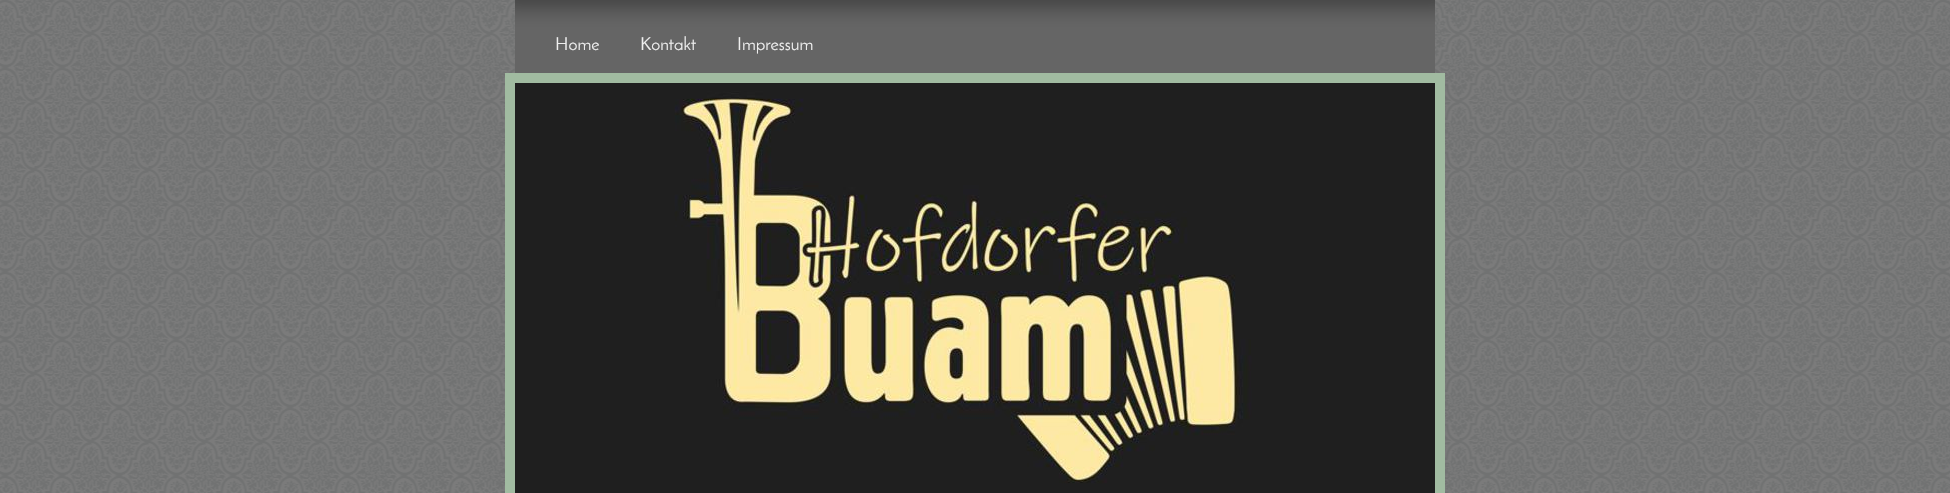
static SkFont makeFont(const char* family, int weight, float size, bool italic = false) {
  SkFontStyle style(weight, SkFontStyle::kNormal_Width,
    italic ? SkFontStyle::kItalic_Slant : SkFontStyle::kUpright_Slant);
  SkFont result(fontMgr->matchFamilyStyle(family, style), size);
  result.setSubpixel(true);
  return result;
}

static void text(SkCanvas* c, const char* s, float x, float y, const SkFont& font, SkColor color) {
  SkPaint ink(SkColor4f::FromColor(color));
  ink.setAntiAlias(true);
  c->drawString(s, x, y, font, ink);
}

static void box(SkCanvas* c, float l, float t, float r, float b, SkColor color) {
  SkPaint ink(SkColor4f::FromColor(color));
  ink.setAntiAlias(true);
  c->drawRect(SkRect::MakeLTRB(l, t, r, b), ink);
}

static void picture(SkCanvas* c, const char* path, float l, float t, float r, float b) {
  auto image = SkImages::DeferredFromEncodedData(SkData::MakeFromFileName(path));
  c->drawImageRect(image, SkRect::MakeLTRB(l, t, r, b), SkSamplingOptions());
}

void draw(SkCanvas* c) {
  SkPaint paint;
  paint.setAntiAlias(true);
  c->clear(0xff101212);
  picture(c, "img_01.png", 0, 0, 1950, 493);
  box(c, 515, 0, 1435, 73, 0xff656565);
  c->save();
  c->clipRect(SkRect::MakeLTRB(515, 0, 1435, 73));
  paint.setColor(0xe6000000);
  paint.setMaskFilter(SkMaskFilter::MakeBlur(kNormal_SkBlurStyle, 12.5f));
  c->drawRect(SkRect::MakeLTRB(495, -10, 1455, 0), paint);
  paint.setMaskFilter(nullptr);
  c->restore();
  SkFont face1 = makeFont("Josefin Sans", 400, 18);
  text(c, "Home", 555, 50, face1, 0xffefefef);
  text(c, "Kontakt", 640, 50, face1, 0xffefefef);
  text(c, "Impressum", 737, 50, face1, 0xffefefef);
  paint.setStyle(SkPaint::kStroke_Style);
  paint.setStrokeWidth(10);
  paint.setColor(0xffa1bba1);
  c->drawRect(SkRect::MakeLTRB(510, 78, 1440, 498), paint);
  picture(c, "img_02.png", 515, 83, 1435, 493);
}
